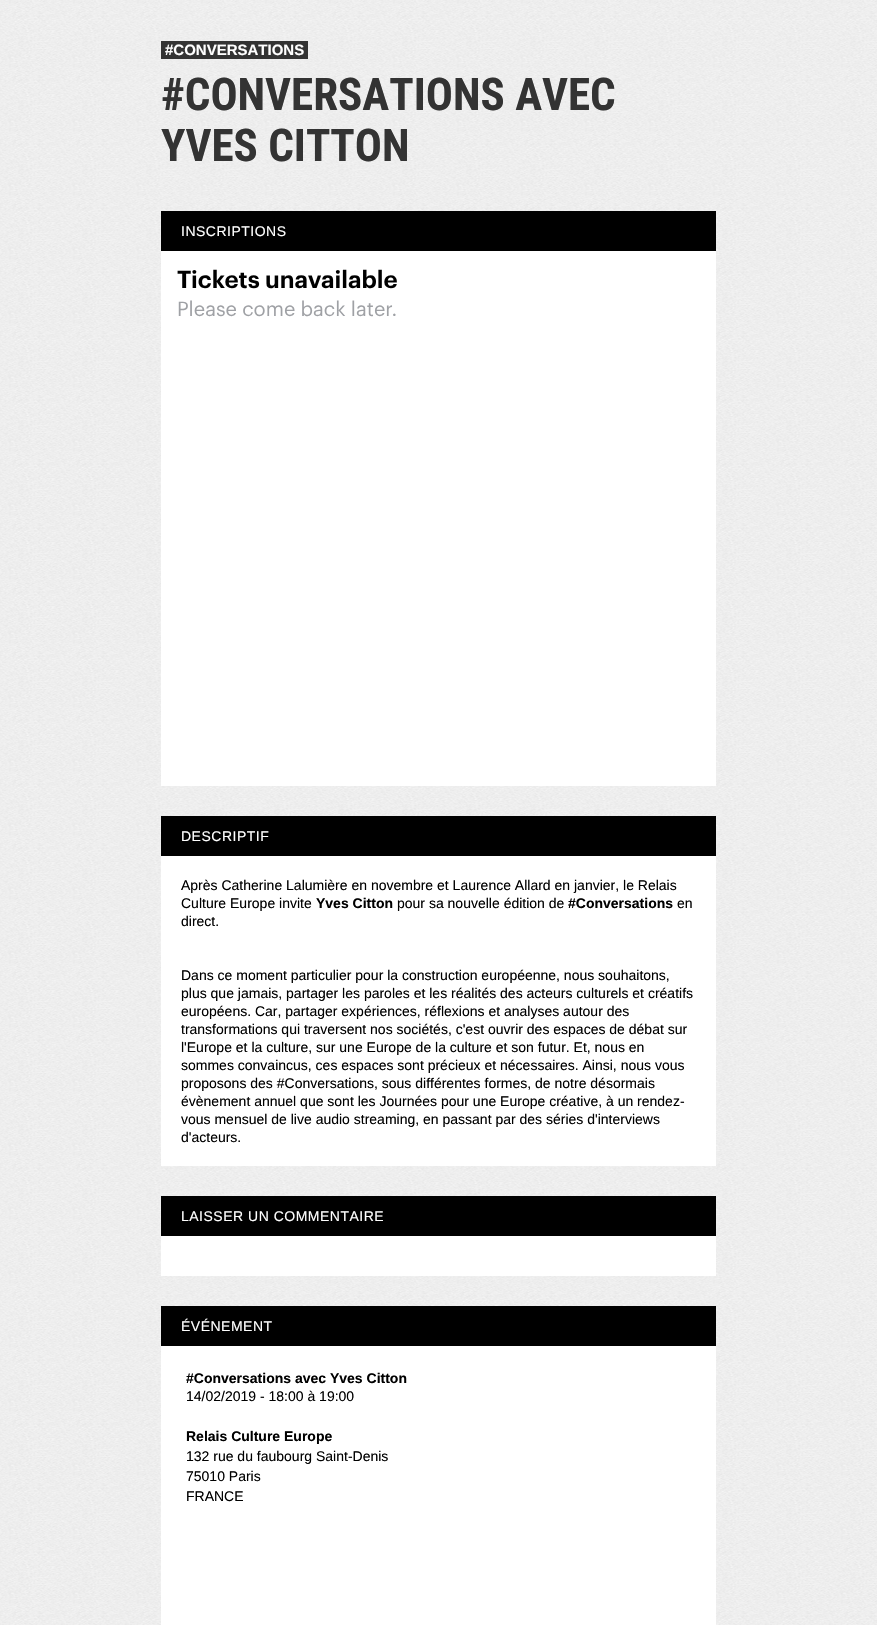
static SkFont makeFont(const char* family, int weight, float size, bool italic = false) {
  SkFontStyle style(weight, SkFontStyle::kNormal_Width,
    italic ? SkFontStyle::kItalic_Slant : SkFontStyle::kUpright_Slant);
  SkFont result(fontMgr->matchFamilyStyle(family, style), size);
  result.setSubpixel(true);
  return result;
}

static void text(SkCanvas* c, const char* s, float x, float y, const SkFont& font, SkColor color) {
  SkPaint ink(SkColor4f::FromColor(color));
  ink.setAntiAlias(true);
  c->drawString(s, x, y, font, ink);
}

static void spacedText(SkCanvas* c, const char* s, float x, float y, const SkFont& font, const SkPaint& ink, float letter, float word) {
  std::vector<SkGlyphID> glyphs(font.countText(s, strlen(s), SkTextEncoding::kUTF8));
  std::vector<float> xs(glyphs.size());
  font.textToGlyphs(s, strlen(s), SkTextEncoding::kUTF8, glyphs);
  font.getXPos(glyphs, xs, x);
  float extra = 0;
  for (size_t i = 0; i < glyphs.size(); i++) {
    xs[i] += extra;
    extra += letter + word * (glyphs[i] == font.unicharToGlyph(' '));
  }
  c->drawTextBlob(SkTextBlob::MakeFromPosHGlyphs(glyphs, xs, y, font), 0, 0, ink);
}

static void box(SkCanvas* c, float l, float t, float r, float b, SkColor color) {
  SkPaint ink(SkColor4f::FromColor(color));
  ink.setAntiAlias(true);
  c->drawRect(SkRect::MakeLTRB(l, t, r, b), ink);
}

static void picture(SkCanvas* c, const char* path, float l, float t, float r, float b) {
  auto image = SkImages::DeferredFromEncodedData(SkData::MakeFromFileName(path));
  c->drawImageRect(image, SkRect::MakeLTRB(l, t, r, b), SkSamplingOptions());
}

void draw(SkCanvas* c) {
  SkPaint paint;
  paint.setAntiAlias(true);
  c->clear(0xffffffff);
  picture(c, "img_01.png", 0, 0, 877, 1625);
  box(c, 161, 41, 308, 59, 0xff333333);
  SkFont face1 = makeFont("Liberation Sans", 700, 15);
  text(c, "#CONVERSATIONS", 165, 55, face1, 0xffffffff);
  SkFont face2 = makeFont("Roboto Condensed", 700, 45);
  text(c, "#CONVERSATIONS AVEC", 161, 110, face2, 0xff333333);
  text(c, "YVES CITTON", 161, 161, face2, 0xff333333);
  box(c, 161, 211, 716, 251, 0xff000000);
  SkFont face3 = makeFont("Liberation Sans", 400, 14);
  paint.setColor(0xffffffff);
  spacedText(c, "INSCRIPTIONS", 181, 236, face3, paint, 0.5f, 0);
  box(c, 161, 251, 716, 786, 0xffffffff);
  picture(c, "img_02.png", 177, 269, 397, 317);
  box(c, 161, 816, 716, 856, 0xff000000);
  spacedText(c, "DESCRIPTIF", 181, 841, face3, paint, 0.5f, 0);
  box(c, 161, 856, 716, 1166, 0xffffffff);
  text(c, "Après Catherine Lalumière en novembre et Laurence Allard en janvier, le Relais", 181, 890, face3, 0xff000000);
  text(c, "Culture Europe invite", 181, 908, face3, 0xff000000);
  SkFont face4 = makeFont("Liberation Sans", 700, 14);
  text(c, "Yves Citton", 316, 908, face4, 0xff000000);
  text(c, "pour sa nouvelle édition de", 397, 908, face3, 0xff000000);
  text(c, "#Conversations", 568, 908, face4, 0xff000000);
  text(c, "en", 677, 908, face3, 0xff000000);
  text(c, "direct.", 181, 926, face3, 0xff000000);
  text(c, "Dans ce moment particulier pour la construction européenne, nous souhaitons,", 181, 980, face3, 0xff000000);
  text(c, "plus que jamais, partager les paroles et les réalités des acteurs culturels et créatifs", 181, 998, face3, 0xff000000);
  text(c, "européens. Car, partager expériences, réflexions et analyses autour des", 181, 1016, face3, 0xff000000);
  text(c, "transformations qui traversent nos sociétés, c'est ouvrir des espaces de débat sur", 181, 1034, face3, 0xff000000);
  text(c, "l'Europe et la culture, sur une Europe de la culture et son futur. Et, nous en", 181, 1052, face3, 0xff000000);
  text(c, "sommes convaincus, ces espaces sont précieux et nécessaires. Ainsi, nous vous", 181, 1070, face3, 0xff000000);
  text(c, "proposons des #Conversations, sous différentes formes, de notre désormais", 181, 1088, face3, 0xff000000);
  text(c, "évènement annuel que sont les Journées pour une Europe créative, à un rendez-", 181, 1106, face3, 0xff000000);
  text(c, "vous mensuel de live audio streaming, en passant par des séries d'interviews", 181, 1124, face3, 0xff000000);
  text(c, "d'acteurs.", 181, 1142, face3, 0xff000000);
  box(c, 161, 1196, 716, 1236, 0xff000000);
  spacedText(c, "LAISSER UN COMMENTAIRE", 181, 1221, face3, paint, 0.5f, 0);
  box(c, 161, 1236, 716, 1276, 0xffffffff);
  box(c, 161, 1306, 716, 1346, 0xff000000);
  spacedText(c, "ÉVÉNEMENT", 181, 1331, face3, paint, 0.5f, 0);
  box(c, 161, 1346, 716, 1625, 0xffffffff);
  text(c, "#Conversations avec Yves Citton", 186, 1383, face4, 0xff000000);
  text(c, "14/02/2019 - 18:00 à 19:00", 186, 1401, face3, 0xff000000);
  text(c, "Relais Culture Europe", 186, 1441, face4, 0xff000000);
  text(c, "132 rue du faubourg Saint-Denis", 186, 1461, face3, 0xff000000);
  text(c, "75010 Paris", 186, 1481, face3, 0xff000000);
  text(c, "FRANCE", 186, 1501, face3, 0xff000000);
}
